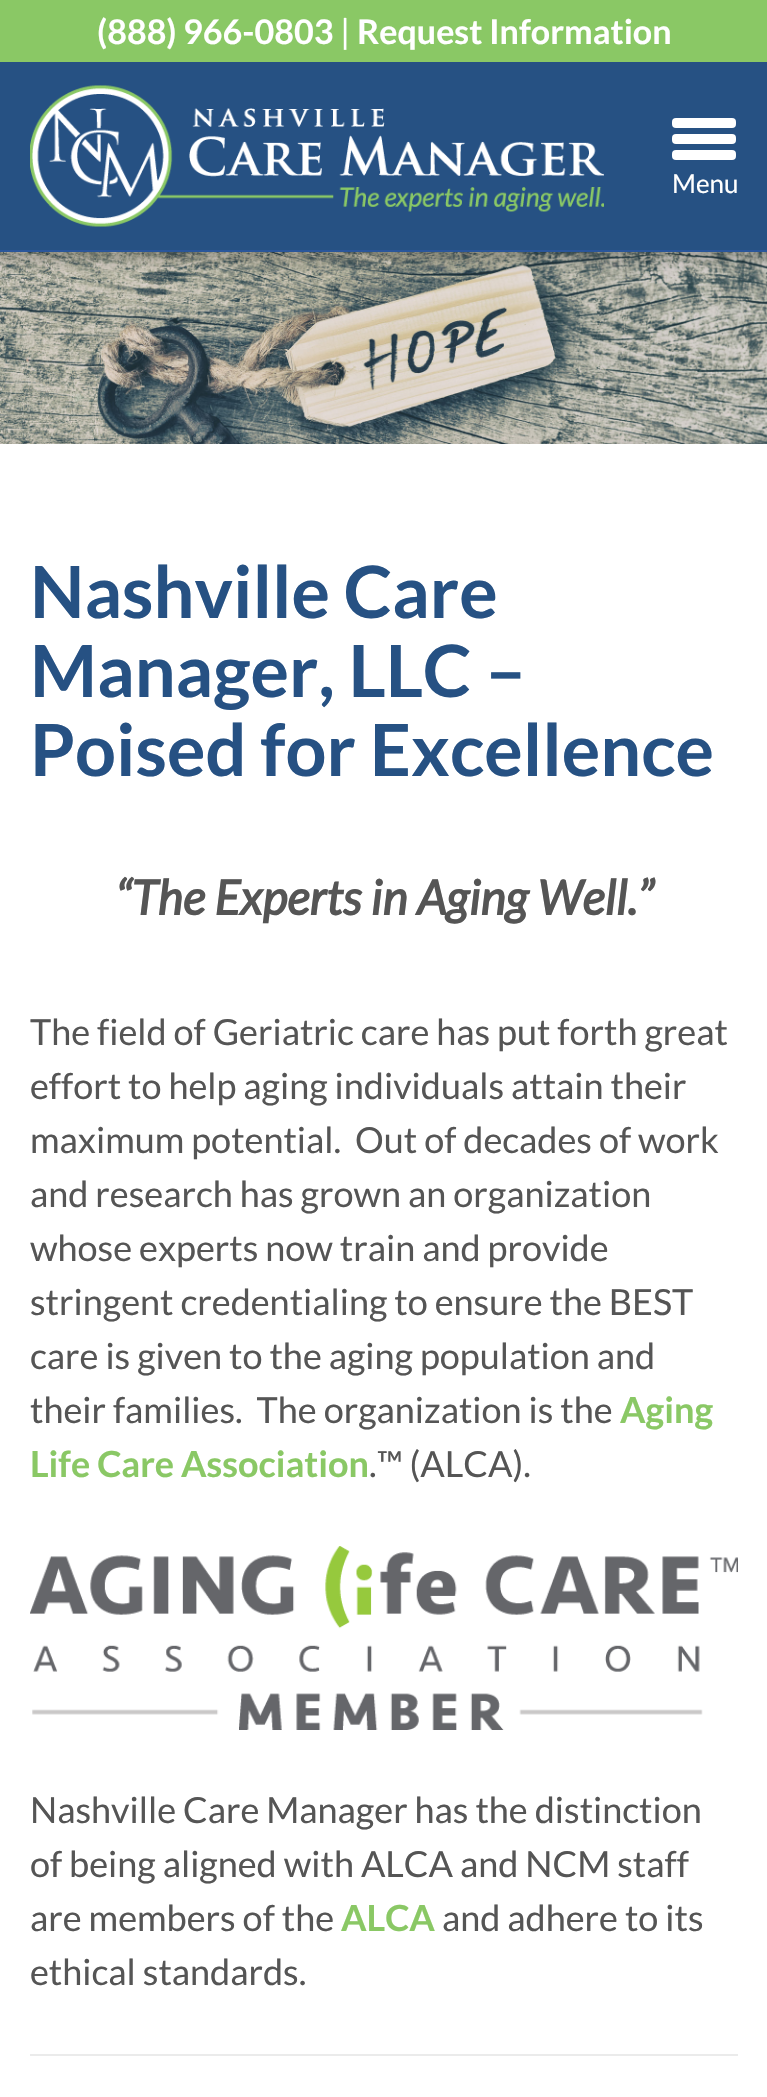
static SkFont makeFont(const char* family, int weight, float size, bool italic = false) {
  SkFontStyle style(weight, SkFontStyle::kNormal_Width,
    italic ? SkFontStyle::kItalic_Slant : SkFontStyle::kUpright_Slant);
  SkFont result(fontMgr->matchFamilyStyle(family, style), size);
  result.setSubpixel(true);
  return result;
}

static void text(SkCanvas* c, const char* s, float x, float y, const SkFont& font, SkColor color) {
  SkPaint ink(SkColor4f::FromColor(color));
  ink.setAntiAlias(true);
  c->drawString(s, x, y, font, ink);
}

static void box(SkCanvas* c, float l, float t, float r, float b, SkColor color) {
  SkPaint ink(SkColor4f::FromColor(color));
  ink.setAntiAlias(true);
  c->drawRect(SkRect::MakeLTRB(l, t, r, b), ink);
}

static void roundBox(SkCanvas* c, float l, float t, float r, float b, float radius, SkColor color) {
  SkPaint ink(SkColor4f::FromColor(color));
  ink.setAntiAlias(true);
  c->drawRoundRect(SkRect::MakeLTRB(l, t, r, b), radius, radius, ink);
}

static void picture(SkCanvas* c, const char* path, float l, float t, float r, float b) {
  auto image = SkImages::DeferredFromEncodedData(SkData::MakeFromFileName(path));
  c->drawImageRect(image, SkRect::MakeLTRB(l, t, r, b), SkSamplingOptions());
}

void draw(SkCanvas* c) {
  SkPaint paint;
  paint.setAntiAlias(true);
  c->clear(0xffffffff);
  box(c, 0, 62, 767, 250, 0xff265183);
  box(c, 0, 0, 767, 62, 0xff8ac865);
  SkFont face1 = makeFont("Lato", 700, 34);
  text(c, "(888) 966-0803", 97, 44, face1, 0xffffffff);
  SkFont face2 = makeFont("Lato", 400, 34);
  text(c, "|", 340, 44, face2, 0xffffffff);
  text(c, "Request Information", 357, 44, face1, 0xffffffff);
  picture(c, "img_01.png", 30, 85, 604, 227);
  roundBox(c, 672, 118, 736, 128, 4, 0xffffffff);
  roundBox(c, 672, 134, 736, 144, 4, 0xffffffff);
  roundBox(c, 672, 150, 736, 160, 4, 0xffffffff);
  SkFont face3 = makeFont("Lato", 400, 26);
  text(c, "Menu", 672, 193, face3, 0xffffffff);
  box(c, 0, 250, 767, 252, 0xff2a569a);
  picture(c, "img_02.png", 0, 252, 767, 444);
  SkFont face4 = makeFont("Lato", 700, 72);
  text(c, "Nashville Care", 30, 618, face4, 0xff265183);
  text(c, "Manager, LLC –", 30, 697, face4, 0xff265183);
  text(c, "Poised for Excellence", 30, 776, face4, 0xff265183);
  SkFont face5 = makeFont("Lato", 700, 48, true);
  text(c, "“The Experts in Aging Well.”", 115, 915, face5, 0xff555555);
  SkFont face6 = makeFont("Lato", 400, 36);
  text(c, "The field of Geriatric care has put forth great", 30, 1045, face6, 0xff555555);
  text(c, "effort to help aging individuals attain their", 30, 1099, face6, 0xff555555);
  text(c, "maximum potential.  Out of decades of work", 30, 1153, face6, 0xff555555);
  text(c, "and research has grown an organization", 30, 1207, face6, 0xff555555);
  text(c, "whose experts now train and provide", 30, 1261, face6, 0xff555555);
  text(c, "stringent credentialing to ensure the BEST", 30, 1315, face6, 0xff555555);
  text(c, "care is given to the aging population and", 30, 1369, face6, 0xff555555);
  text(c, "their families.  The organization is the", 30, 1423, face6, 0xff555555);
  SkFont face7 = makeFont("Lato", 700, 36);
  text(c, "Aging", 620, 1423, face7, 0xff8ac865);
  text(c, "Life Care Association", 30, 1477, face7, 0xff8ac865);
  text(c, ".™ (ALCA).", 369, 1477, face6, 0xff555555);
  picture(c, "img_03.png", 30, 1546, 738, 1730);
  text(c, "Nashville Care Manager has the distinction", 30, 1823, face6, 0xff555555);
  text(c, "of being aligned with ALCA and NCM staff", 30, 1877, face6, 0xff555555);
  text(c, "are members of the", 30, 1931, face6, 0xff555555);
  text(c, "ALCA", 341, 1931, face7, 0xff8ac865);
  text(c, "and adhere to its", 442, 1931, face6, 0xff555555);
  text(c, "ethical standards.", 30, 1985, face6, 0xff555555);
  box(c, 30, 2054, 738, 2056, 0xffebebeb);
}
